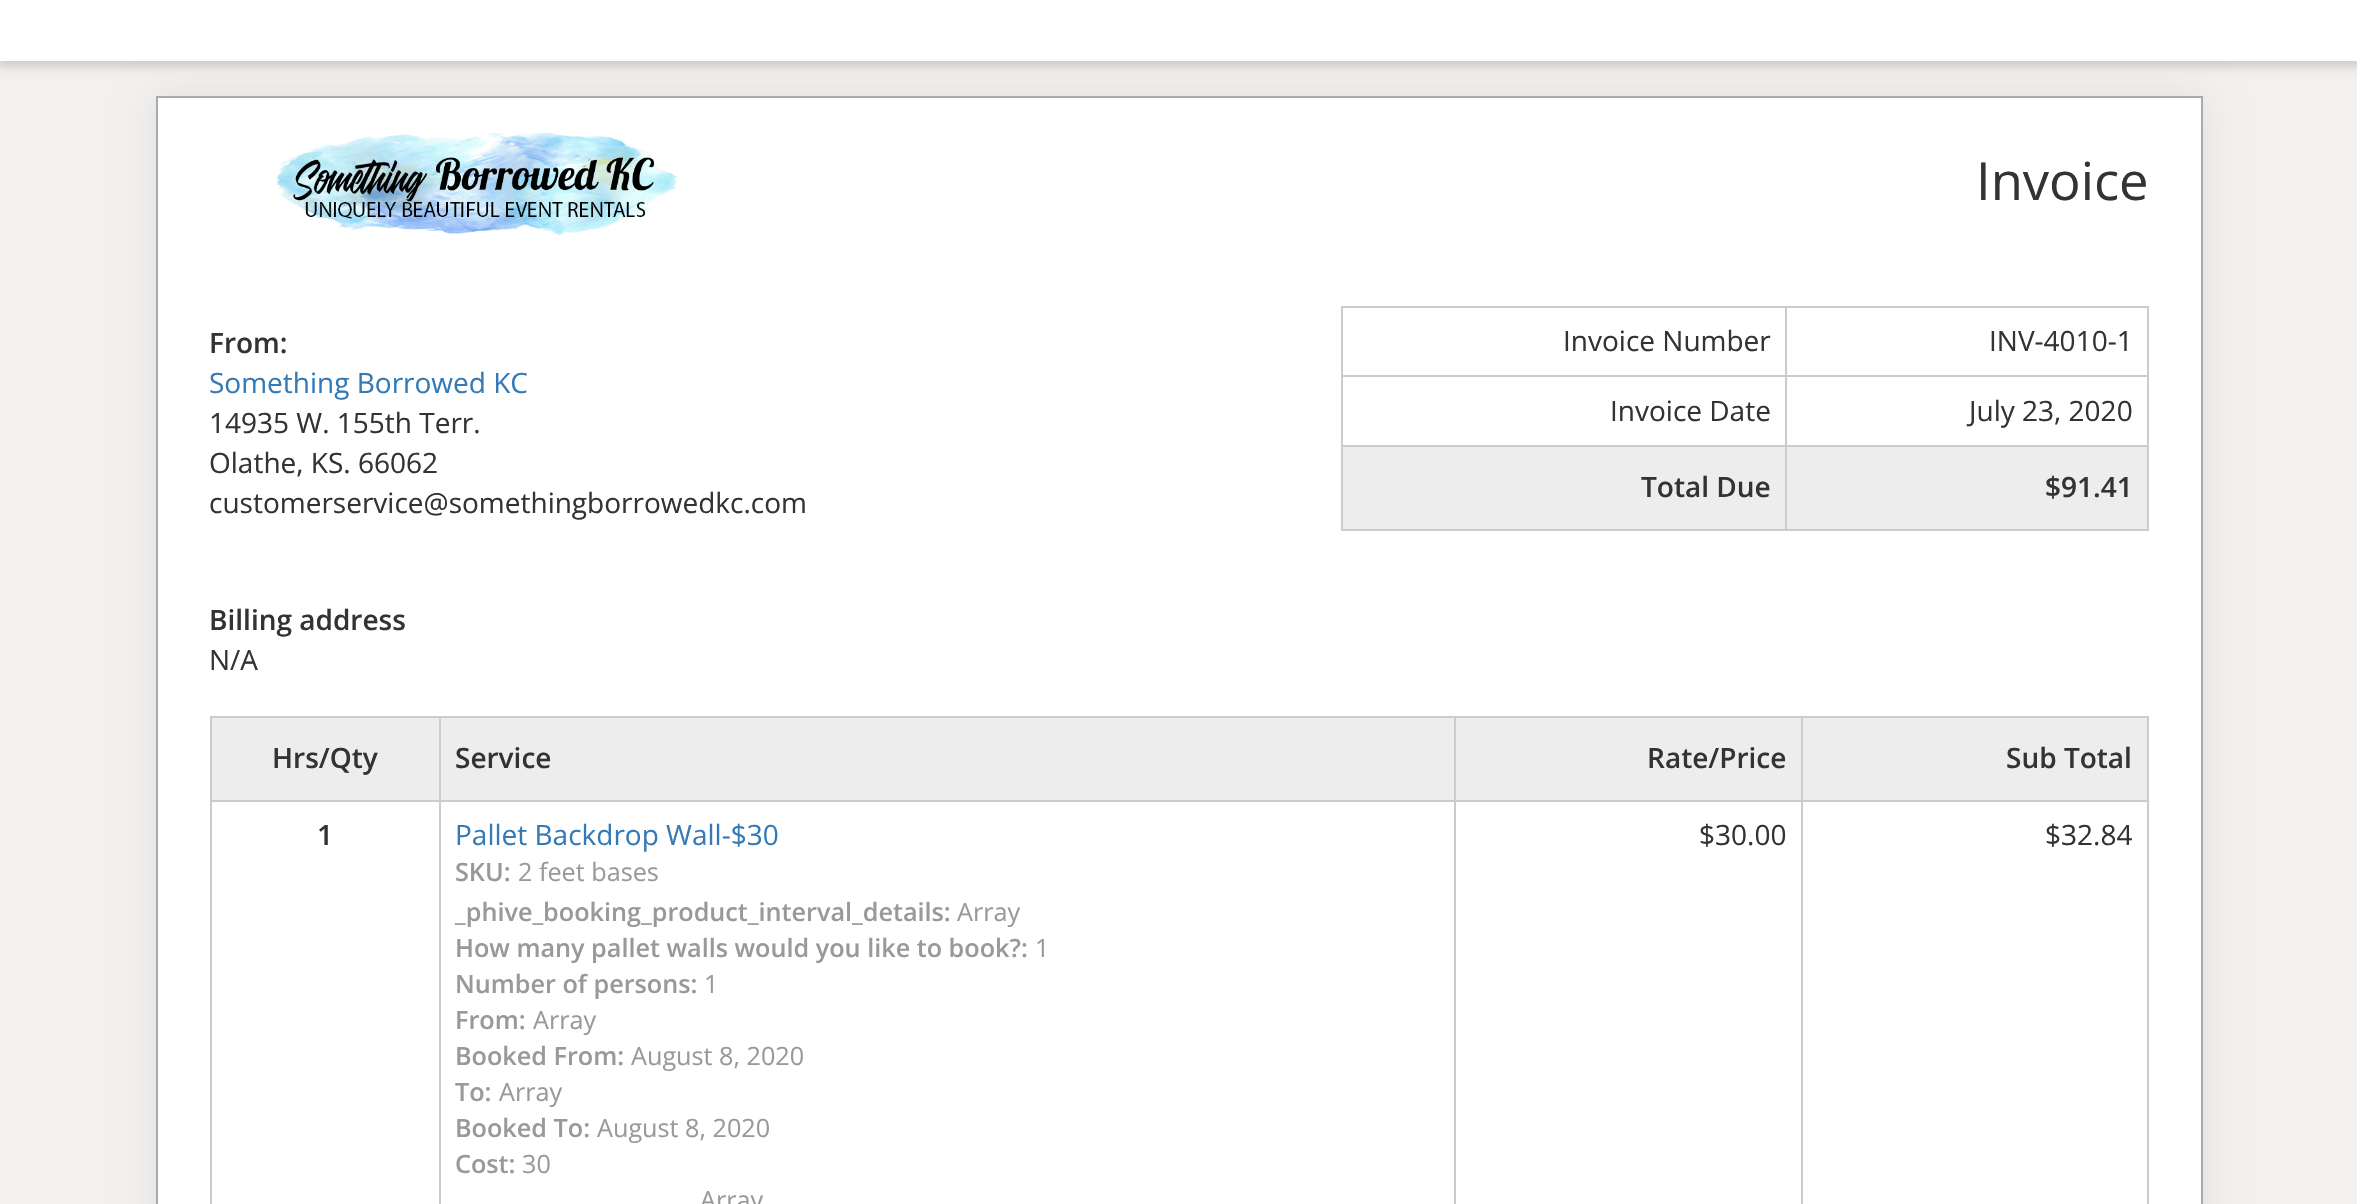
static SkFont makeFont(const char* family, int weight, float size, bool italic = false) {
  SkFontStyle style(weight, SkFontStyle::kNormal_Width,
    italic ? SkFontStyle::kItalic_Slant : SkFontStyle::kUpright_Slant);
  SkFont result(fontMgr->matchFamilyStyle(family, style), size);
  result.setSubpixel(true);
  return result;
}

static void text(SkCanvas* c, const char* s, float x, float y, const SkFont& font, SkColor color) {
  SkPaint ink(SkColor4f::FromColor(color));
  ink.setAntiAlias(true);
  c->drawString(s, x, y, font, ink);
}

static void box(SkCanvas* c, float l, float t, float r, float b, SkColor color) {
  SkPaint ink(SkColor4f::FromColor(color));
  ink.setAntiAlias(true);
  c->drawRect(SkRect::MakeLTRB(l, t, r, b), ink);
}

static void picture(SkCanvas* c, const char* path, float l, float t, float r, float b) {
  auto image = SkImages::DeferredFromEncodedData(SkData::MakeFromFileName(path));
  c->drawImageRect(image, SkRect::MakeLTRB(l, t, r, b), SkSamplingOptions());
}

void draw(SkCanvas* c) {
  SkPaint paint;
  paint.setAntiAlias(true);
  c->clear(0xfff2f1ef);
  paint.setColor(0x26000000);
  paint.setMaskFilter(SkMaskFilter::MakeBlur(kNormal_SkBlurStyle, 4.5f));
  c->drawRect(SkRect::MakeLTRB(-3, -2, 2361, 67), paint);
  paint.setMaskFilter(nullptr);
  box(c, 0, 0, 2357, 61, 0xffffffff);
  paint.setColor(0x12000000);
  paint.setMaskFilter(SkMaskFilter::MakeBlur(kNormal_SkBlurStyle, 17.5f));
  c->drawRect(SkRect::MakeLTRB(156, 96, 2203, 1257), paint);
  paint.setMaskFilter(nullptr);
  paint.setColor(0xffffffff);
  c->drawRect(SkRect::MakeLTRB(157, 97, 2202, 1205), paint);
  paint.setStyle(SkPaint::kStroke_Style);
  paint.setStrokeWidth(2);
  paint.setColor(0xffaaaaaa);
  c->drawRect(SkRect::MakeLTRB(157, 97, 2202, 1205), paint);
  picture(c, "img_01.png", 276, 133, 677, 236);
  SkFont face1 = makeFont("Open Sans", 400, 52.5f);
  text(c, "Invoice", 1976, 200, face1, 0xff333333);
  SkFont face2 = makeFont("Open Sans", 600, 28);
  text(c, "From:", 209, 353, face2, 0xff333333);
  SkFont face3 = makeFont("Open Sans", 400, 28);
  text(c, "Something Borrowed KC", 209, 393, face3, 0xff337ab7);
  text(c, "14935 W. 155th Terr.", 209, 433, face3, 0xff333333);
  text(c, "Olathe, KS. 66062", 209, 473, face3, 0xff333333);
  text(c, "customerservice@somethingborrowedkc.com", 209, 513, face3, 0xff333333);
  box(c, 1341, 306, 2149, 308, 0xffcccccc);
  box(c, 2147, 306, 2149, 530, 0xffcccccc);
  box(c, 1341, 529, 2149, 531, 0xffcccccc);
  box(c, 1341, 306, 1343, 530, 0xffcccccc);
  text(c, "Invoice Number", 1563, 351, face3, 0xff333333);
  box(c, 1785, 375, 2149, 377, 0xffcccccc);
  box(c, 1785, 445, 2149, 447, 0xffcccccc);
  box(c, 1785, 445, 1787, 530, 0xffcccccc);
  box(c, 1341, 445, 1787, 447, 0xffcccccc);
  box(c, 1785, 375, 1787, 446, 0xffcccccc);
  box(c, 1341, 375, 1787, 377, 0xffcccccc);
  box(c, 1785, 306, 1787, 376, 0xffcccccc);
  text(c, "INV-4010-1", 1989, 351, face3, 0xff333333);
  text(c, "Invoice Date", 1610, 421, face3, 0xff333333);
  text(c, "July 23, 2020", 1969, 421, face3, 0xff333333);
  box(c, 1343, 447, 1785, 529, 0xffededed);
  text(c, "Total Due", 1641, 497, face2, 0xff333333);
  box(c, 1787, 447, 2147, 529, 0xffededed);
  text(c, "$91.41", 2045, 497, face2, 0xff333333);
  text(c, "Billing address", 209, 630, face2, 0xff333333);
  text(c, "N/A", 209, 670, face3, 0xff333333);
  box(c, 210, 716, 2149, 718, 0xffcccccc);
  box(c, 2147, 716, 2149, 1204, 0xffcccccc);
  box(c, 210, 716, 212, 1204, 0xffcccccc);
  box(c, 212, 718, 439, 800, 0xffededed);
  text(c, "Hrs/Qty", 272, 768, face2, 0xff333333);
  box(c, 441, 718, 1454, 800, 0xffededed);
  box(c, 1801, 800, 2149, 802, 0xffcccccc);
  box(c, 1801, 800, 1803, 1204, 0xffcccccc);
  box(c, 1454, 800, 1803, 802, 0xffcccccc);
  box(c, 1454, 800, 1456, 1204, 0xffcccccc);
  box(c, 439, 800, 1456, 802, 0xffcccccc);
  box(c, 439, 800, 441, 1204, 0xffcccccc);
  box(c, 210, 800, 441, 802, 0xffcccccc);
  box(c, 439, 716, 441, 802, 0xffcccccc);
  text(c, "Service", 455, 768, face2, 0xff333333);
  box(c, 1456, 718, 1801, 800, 0xffededed);
  box(c, 1454, 716, 1456, 802, 0xffcccccc);
  text(c, "Rate/Price", 1647, 768, face2, 0xff333333);
  box(c, 1803, 718, 2147, 800, 0xffededed);
  box(c, 1801, 716, 1803, 802, 0xffcccccc);
  text(c, "Sub Total", 2006, 768, face2, 0xff333333);
  text(c, "1", 317, 845, face2, 0xff333333);
  text(c, "Pallet Backdrop Wall-$30", 455, 845, face3, 0xff337ab7);
  SkFont face4 = makeFont("Open Sans", 600, 25.2f);
  text(c, "SKU:", 455, 881, face4, 0xff999999);
  SkFont face5 = makeFont("Open Sans", 400, 25.2f);
  text(c, "2 feet bases", 518, 881, face5, 0xff999999);
  text(c, "_phive_booking_product_interval_details:", 455, 921, face4, 0xff999999);
  text(c, "Array", 957, 921, face5, 0xff999999);
  text(c, "How many pallet walls would you like to book?:", 455, 957, face4, 0xff999999);
  text(c, "1", 1035, 957, face5, 0xff999999);
  text(c, "Number of persons:", 455, 993, face4, 0xff999999);
  text(c, "1", 704, 993, face5, 0xff999999);
  text(c, "From:", 455, 1029, face4, 0xff999999);
  text(c, "Array", 533, 1029, face5, 0xff999999);
  text(c, "Booked From:", 455, 1065, face4, 0xff999999);
  text(c, "August 8, 2020", 631, 1065, face5, 0xff999999);
  text(c, "To:", 455, 1101, face4, 0xff999999);
  text(c, "Array", 499, 1101, face5, 0xff999999);
  text(c, "Booked To:", 455, 1137, face4, 0xff999999);
  text(c, "August 8, 2020", 597, 1137, face5, 0xff999999);
  text(c, "Cost:", 455, 1173, face4, 0xff999999);
  text(c, "30", 522, 1173, face5, 0xff999999);
  text(c, "Array", 700, 1209, face5, 0xff999999);
  text(c, "$30.00", 1699, 845, face3, 0xff333333);
  text(c, "$32.84", 2045, 845, face3, 0xff333333);
}
